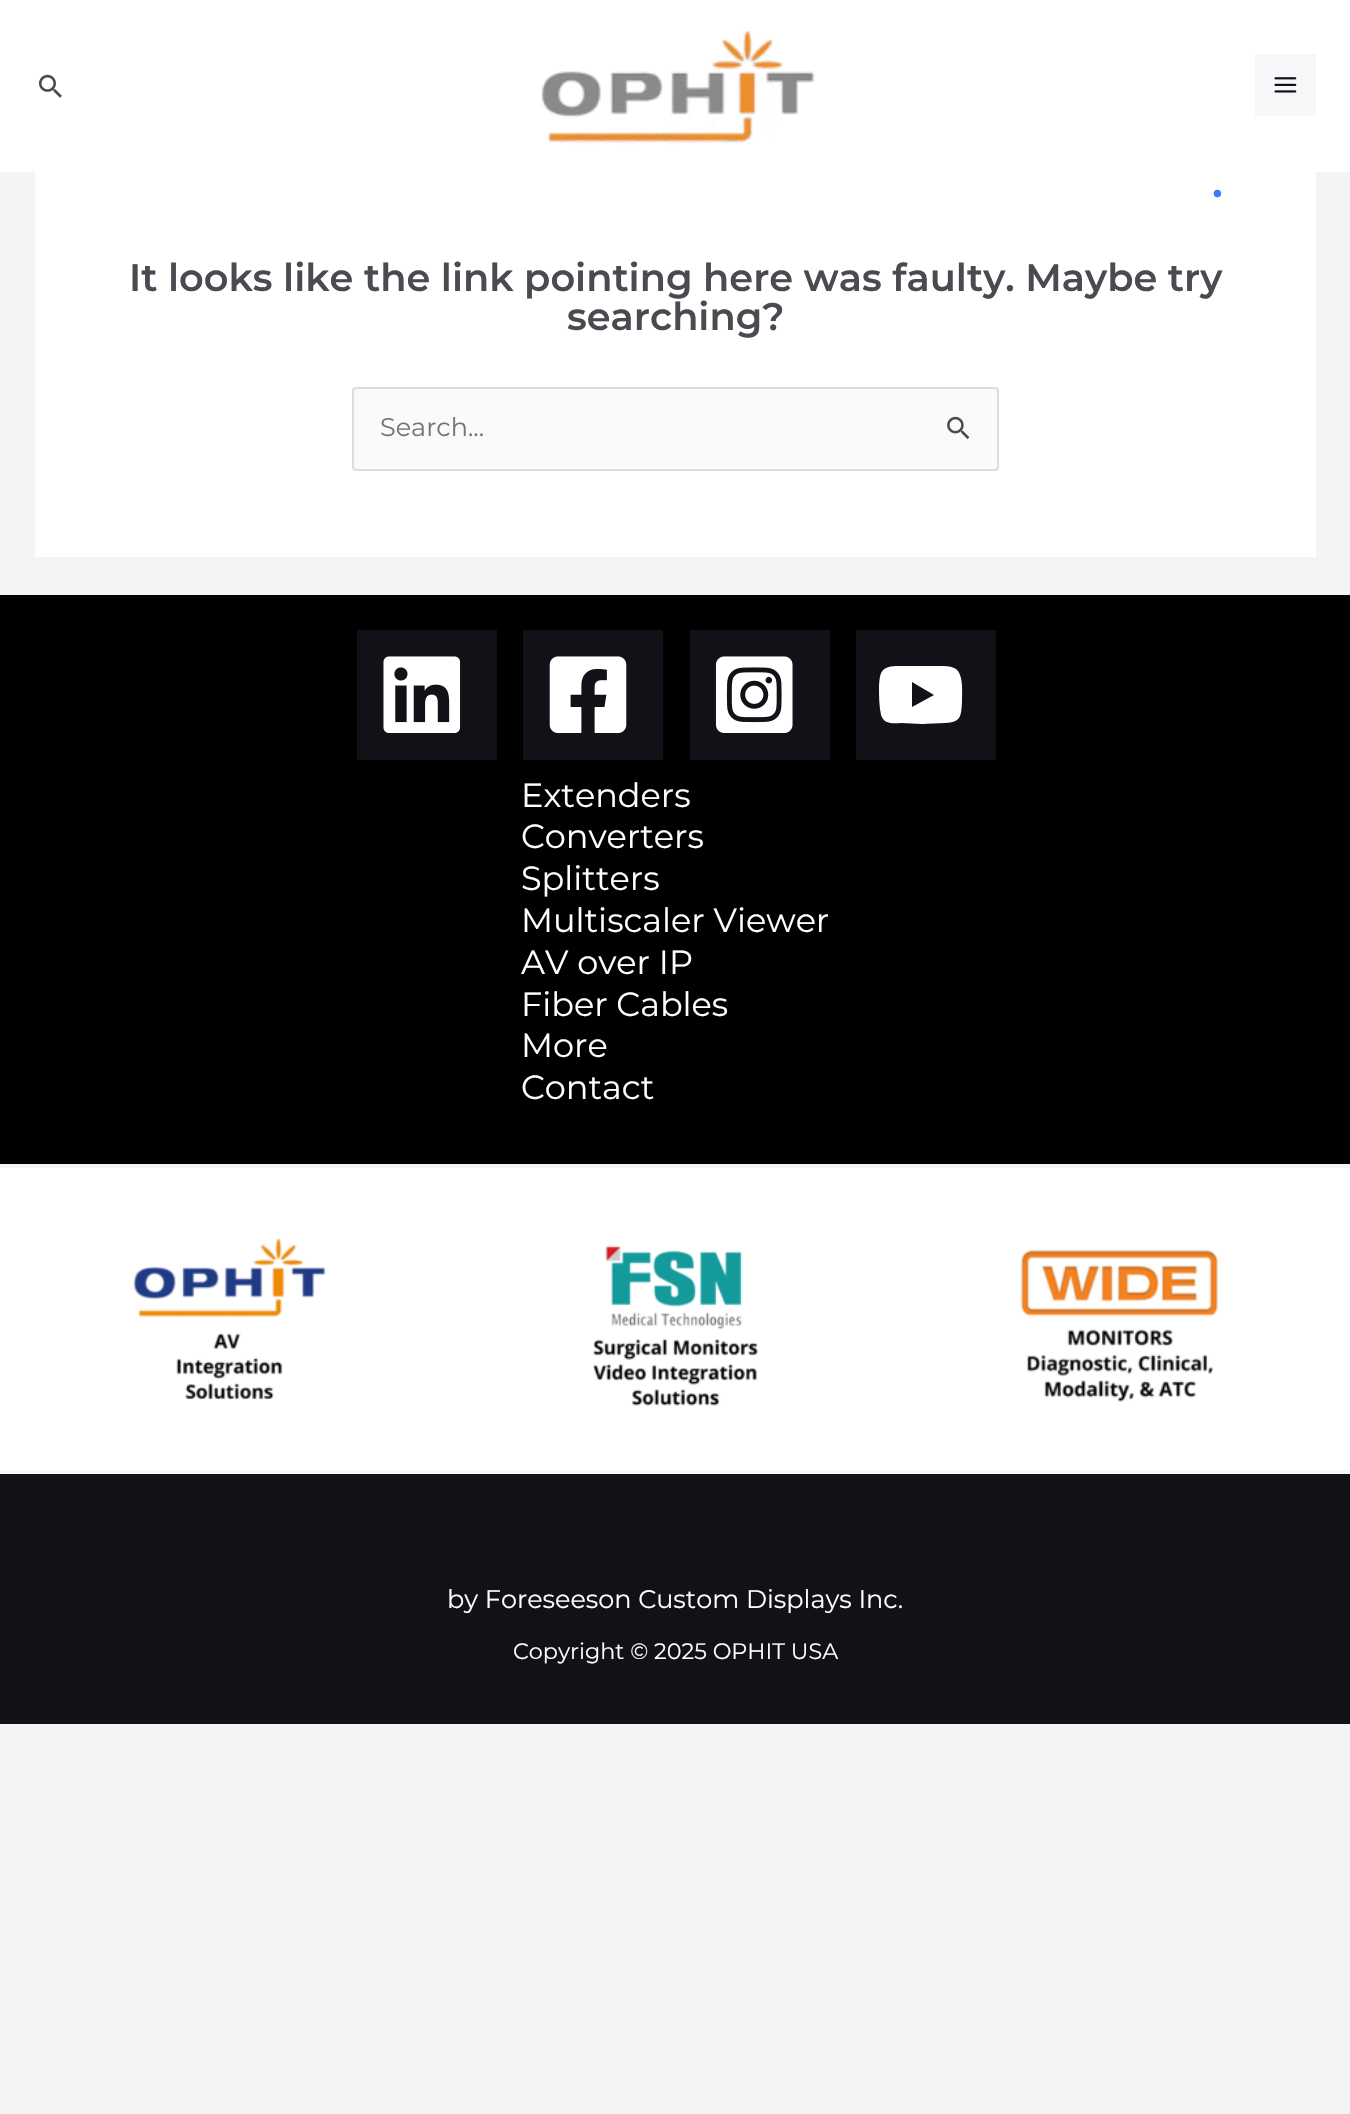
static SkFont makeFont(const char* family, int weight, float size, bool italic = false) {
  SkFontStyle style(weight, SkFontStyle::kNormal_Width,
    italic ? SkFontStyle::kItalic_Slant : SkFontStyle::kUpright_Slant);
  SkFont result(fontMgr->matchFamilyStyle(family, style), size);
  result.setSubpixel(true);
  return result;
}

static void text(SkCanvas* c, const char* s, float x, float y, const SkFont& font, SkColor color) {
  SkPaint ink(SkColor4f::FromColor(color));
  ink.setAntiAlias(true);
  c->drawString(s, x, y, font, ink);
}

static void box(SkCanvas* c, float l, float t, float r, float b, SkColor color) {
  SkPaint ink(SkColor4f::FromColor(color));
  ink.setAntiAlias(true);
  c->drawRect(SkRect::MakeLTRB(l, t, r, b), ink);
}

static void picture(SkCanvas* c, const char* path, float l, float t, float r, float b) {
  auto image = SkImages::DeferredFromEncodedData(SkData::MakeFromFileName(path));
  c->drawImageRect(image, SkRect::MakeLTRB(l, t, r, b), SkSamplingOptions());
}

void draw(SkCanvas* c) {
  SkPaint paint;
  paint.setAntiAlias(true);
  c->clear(0xfff3f5f5);
  box(c, 0, 0, 1350, 172, 0xffffffff);
  picture(c, "img_01.png", 38, 74, 62, 98);
  picture(c, "img_02.png", 540, 30, 815, 145);
  box(c, 1255, 54, 1316, 116, 0xfff6f7f8);
  picture(c, "img_03.png", 1274, 77, 1297, 93);
  box(c, 35, 172, 1316, 557, 0xffffffff);
  SkFont face1 = makeFont("Montserrat", 400, 70);
  text(c, ".", 1210, 197, face1, 0xff4175fc);
  SkFont face2 = makeFont("Montserrat", 600, 38.3f);
  text(c, "It looks like the link pointing here was faulty. Maybe try", 129, 291, face2, 0xff494b51);
  text(c, "searching?", 567, 330, face2, 0xff494b51);
  paint.setColor(0xfffafafa);
  c->drawRoundRect(SkRect::MakeLTRB(353, 388, 998, 470), 3, 3, paint);
  paint.setStyle(SkPaint::kStroke_Style);
  paint.setStrokeWidth(2);
  paint.setColor(0xffdddddd);
  c->drawRoundRect(SkRect::MakeLTRB(353, 388, 998, 470), 3, 3, paint);
  SkFont face3 = makeFont("Montserrat", 400, 25.5f);
  text(c, "Search...", 380, 436, face3, 0xff757575);
  picture(c, "img_04.png", 947, 416, 970, 440);
  box(c, 0, 1168, 1350, 1470, 0xffffffff);
  box(c, 0, 595, 1350, 1164, 0xff000000);
  box(c, 357, 630, 497, 760, 0xff101218);
  picture(c, "img_05.png", 383, 656, 461, 733);
  box(c, 523, 630, 663, 760, 0xff101218);
  picture(c, "img_06.png", 549, 656, 627, 733);
  box(c, 690, 630, 830, 760, 0xff101218);
  picture(c, "img_07.png", 715, 656, 793, 733);
  box(c, 856, 630, 996, 760, 0xff101218);
  paint.setStyle(SkPaint::kFill_Style);
  paint.setColor(0xffffffff);
  c->drawPath(SkPathBuilder().moveTo(960, 675).cubicTo(959, 672, 957, 669, 954, 668).cubicTo(950, 666, 944, 666, 940, 666).lineTo(916, 666).lineTo(896, 666).cubicTo(880, 667, 880, 673, 879, 687).cubicTo(879, 696, 879, 706, 881, 715).cubicTo(882, 718, 884, 721, 887, 722).cubicTo(891, 724, 897, 723, 901, 723).lineTo(922, 724).lineTo(945, 723).cubicTo(961, 722, 961, 717, 962, 702).cubicTo(962, 693, 963, 683, 960, 675).close().moveTo(912, 707).lineTo(912, 682).lineTo(934, 695).close().detach(), paint);
  SkFont face4 = makeFont("Montserrat", 400, 33.5f);
  text(c, "Extenders", 521, 807, face4, 0xffffffff);
  text(c, "Converters", 521, 848, face4, 0xffffffff);
  text(c, "Splitters", 521, 890, face4, 0xffffffff);
  text(c, "Multiscaler Viewer", 521, 932, face4, 0xffffffff);
  text(c, "AV over IP", 521, 974, face4, 0xffffffff);
  text(c, "Fiber Cables", 521, 1016, face4, 0xffffffff);
  text(c, "More", 521, 1057, face4, 0xffffffff);
  text(c, "Contact", 521, 1099, face4, 0xffffffff);
  picture(c, "img_08.png", 133, 1237, 326, 1400);
  picture(c, "img_09.png", 593, 1245, 758, 1406);
  picture(c, "img_10.png", 1020, 1249, 1218, 1402);
  box(c, 0, 1474, 1350, 1724, 0xff101218);
  box(c, 0, 1470, 1350, 1474, 0xfff6f7f8);
  text(c, "by Foreseeson Custom Displays Inc.", 447, 1608, face3, 0xffffffff);
  SkFont face5 = makeFont("Montserrat", 400, 22.3f);
  text(c, "Copyright © 2025 OPHIT USA", 513, 1659, face5, 0xffffffff);
}
